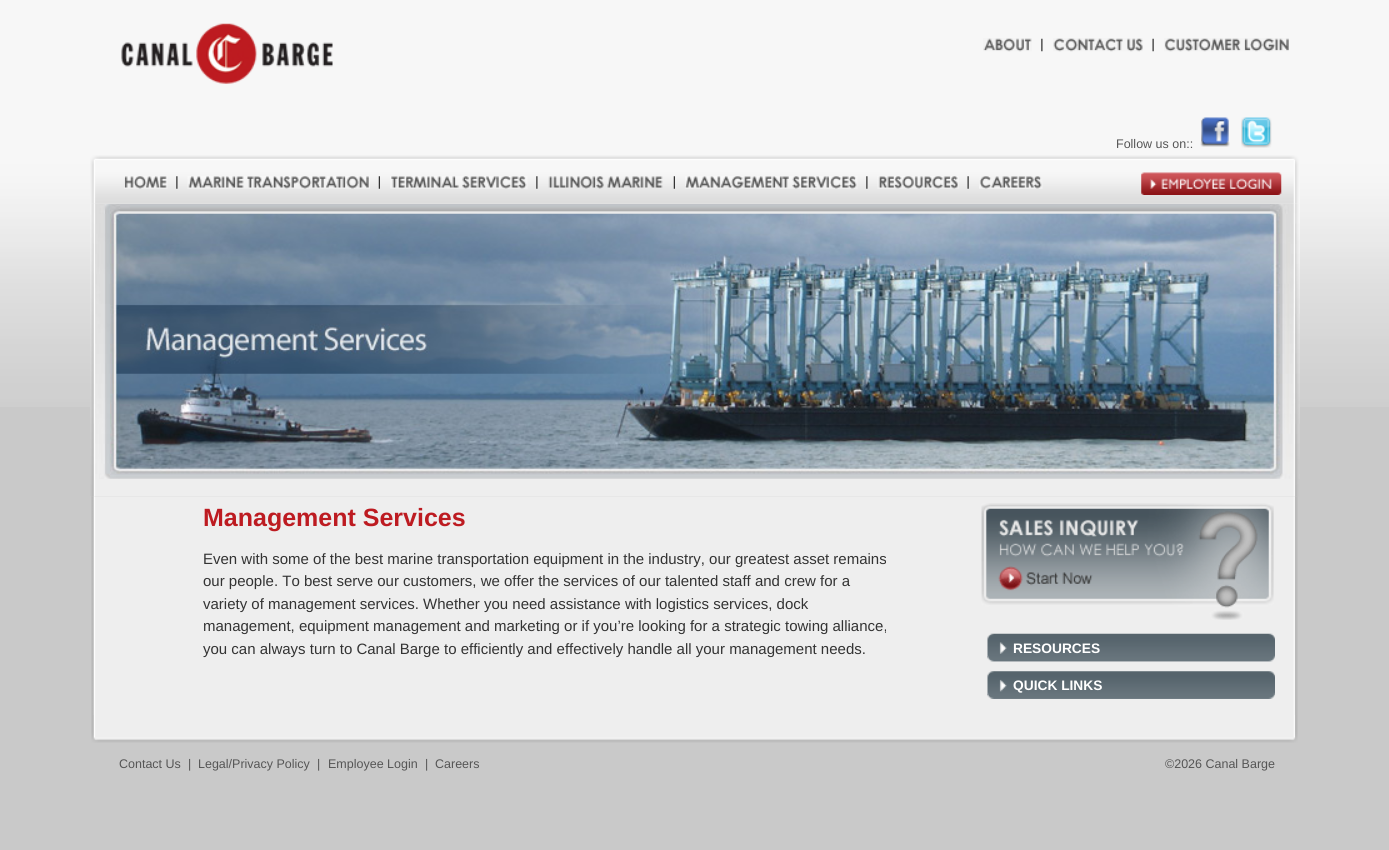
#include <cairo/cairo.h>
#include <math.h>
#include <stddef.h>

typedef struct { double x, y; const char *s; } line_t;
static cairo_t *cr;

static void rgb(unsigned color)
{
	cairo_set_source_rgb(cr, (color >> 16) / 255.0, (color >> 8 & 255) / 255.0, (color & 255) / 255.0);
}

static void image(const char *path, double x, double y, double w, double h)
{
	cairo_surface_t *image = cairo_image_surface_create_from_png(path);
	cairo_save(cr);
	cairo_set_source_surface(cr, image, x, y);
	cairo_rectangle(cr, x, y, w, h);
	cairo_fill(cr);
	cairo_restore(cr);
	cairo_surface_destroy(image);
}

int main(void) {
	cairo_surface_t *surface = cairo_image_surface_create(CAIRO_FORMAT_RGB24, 1389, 850);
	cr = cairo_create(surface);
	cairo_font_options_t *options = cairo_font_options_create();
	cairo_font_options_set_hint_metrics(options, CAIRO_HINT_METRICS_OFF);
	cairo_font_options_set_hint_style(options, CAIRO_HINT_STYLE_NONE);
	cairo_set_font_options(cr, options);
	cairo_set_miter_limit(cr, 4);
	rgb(0xc9c9c9);
	cairo_paint(cr);
	image("img/1.png", 0, 0, 1389, 407);
	image("img/2.png", 121, 23, 212, 61);
	image("img/3.png", 1041, 38, 2, 14);
	image("img/4.png", 983, 38, 49, 14);
	image("img/5.png", 1152, 38, 2, 14);
	image("img/6.png", 1053, 38, 90, 14);
	image("img/7.png", 1164, 38, 125, 14);
	image("img/8.png", 1200, 117, 30, 30);
	image("img/9.png", 1241, 117, 31, 31);
	image("img/22.png", 90, 203, 1209, 294);
	image("img/10.png", 90, 155, 1210, 49);
	image("img/11.png", 176, 176, 2, 13);
	image("img/12.png", 124, 176, 44, 13);
	image("img/13.png", 378, 176, 2, 13);
	image("img/14.png", 187, 176, 183, 13);
	image("img/11.png", 536, 176, 2, 13);
	image("img/15.png", 390, 176, 138, 13);
	image("img/13.png", 673, 176, 2, 13);
	image("img/16.png", 548, 176, 115, 13);
	image("img/11.png", 866, 176, 2, 13);
	image("img/17.png", 685, 176, 173, 13);
	image("img/18.png", 967, 176, 2, 13);
	image("img/19.png", 877, 176, 82, 13);
	image("img/20.png", 979, 176, 64, 13);
	image("img/21.png", 1141, 172, 141, 23);
	image("img/23.png", 93, 204, 1207, 275);
	image("img/24.png", 91, 496, 1207, 219);
	image("img/25.png", 981, 503, 293, 117);
	image("img/26.png", 987, 633, 288, 29);
	image("img/27.png", 987, 656, 288, 6);
	image("img/28.png", 987, 671, 288, 28);
	image("img/29.png", 987, 693, 288, 6);
	image("img/30.png", 91, 715, 1207, 28);
	cairo_select_font_face(cr, "Liberation Sans", CAIRO_FONT_SLANT_NORMAL, CAIRO_FONT_WEIGHT_NORMAL);
	cairo_set_font_size(cr, 12.5);
	rgb(0x555555);
	cairo_move_to(cr, 1116, 148);
	cairo_show_text(cr, "Follow us on::");
	cairo_select_font_face(cr, "Liberation Sans", CAIRO_FONT_SLANT_NORMAL, CAIRO_FONT_WEIGHT_BOLD);
	cairo_set_font_size(cr, 25);
	rgb(0xbd1b21);
	cairo_move_to(cr, 203, 526);
	cairo_show_text(cr, "Management Services");
	cairo_select_font_face(cr, "Liberation Sans", CAIRO_FONT_SLANT_NORMAL, CAIRO_FONT_WEIGHT_NORMAL);
	cairo_set_font_size(cr, 15);
	rgb(0x333333);
	{
		static const line_t items[] = {
			{203, 564, "Even with some of the best marine transportation equipment in the industry, our greatest asset remains"},
			{203, 586, "our people. To best serve our customers, we offer the services of our talented staff and crew for a"},
			{203, 609, "variety of management services. Whether you need assistance with logistics services, dock"},
			{203, 631, "management, equipment management and marketing or if you’re looking for a strategic towing alliance,"},
			{203, 654, "you can always turn to Canal Barge to efficiently and effectively handle all your management needs."},
		};
		for (size_t i = 0; i < sizeof items / sizeof *items; i++) {
			cairo_move_to(cr, items[i].x, items[i].y);
			cairo_show_text(cr, items[i].s);
		}
	}
	cairo_select_font_face(cr, "Liberation Sans", CAIRO_FONT_SLANT_NORMAL, CAIRO_FONT_WEIGHT_BOLD);
	cairo_set_font_size(cr, 13.75);
	rgb(0xffffff);
	cairo_move_to(cr, 1013, 653);
	cairo_show_text(cr, "RESOURCES");
	cairo_move_to(cr, 1013, 690);
	cairo_show_text(cr, "QUICK LINKS");
	cairo_select_font_face(cr, "Liberation Sans", CAIRO_FONT_SLANT_NORMAL, CAIRO_FONT_WEIGHT_NORMAL);
	cairo_set_font_size(cr, 12.5);
	rgb(0x555555);
	{
		static const line_t items[] = {
			{119, 768, "Contact Us"},
			{188, 768, "|"},
			{198, 768, "Legal/Privacy Policy"},
			{317, 768, "|"},
			{328, 768, "Employee Login"},
			{425, 768, "|"},
			{435, 768, "Careers"},
			{1165, 768, "©2026 Canal Barge"},
		};
		for (size_t i = 0; i < sizeof items / sizeof *items; i++) {
			cairo_move_to(cr, items[i].x, items[i].y);
			cairo_show_text(cr, items[i].s);
		}
	}
	cairo_surface_write_to_png(surface, "page.png");
	cairo_font_options_destroy(options);
	cairo_destroy(cr);
	cairo_surface_destroy(surface);
	return 0;
}
